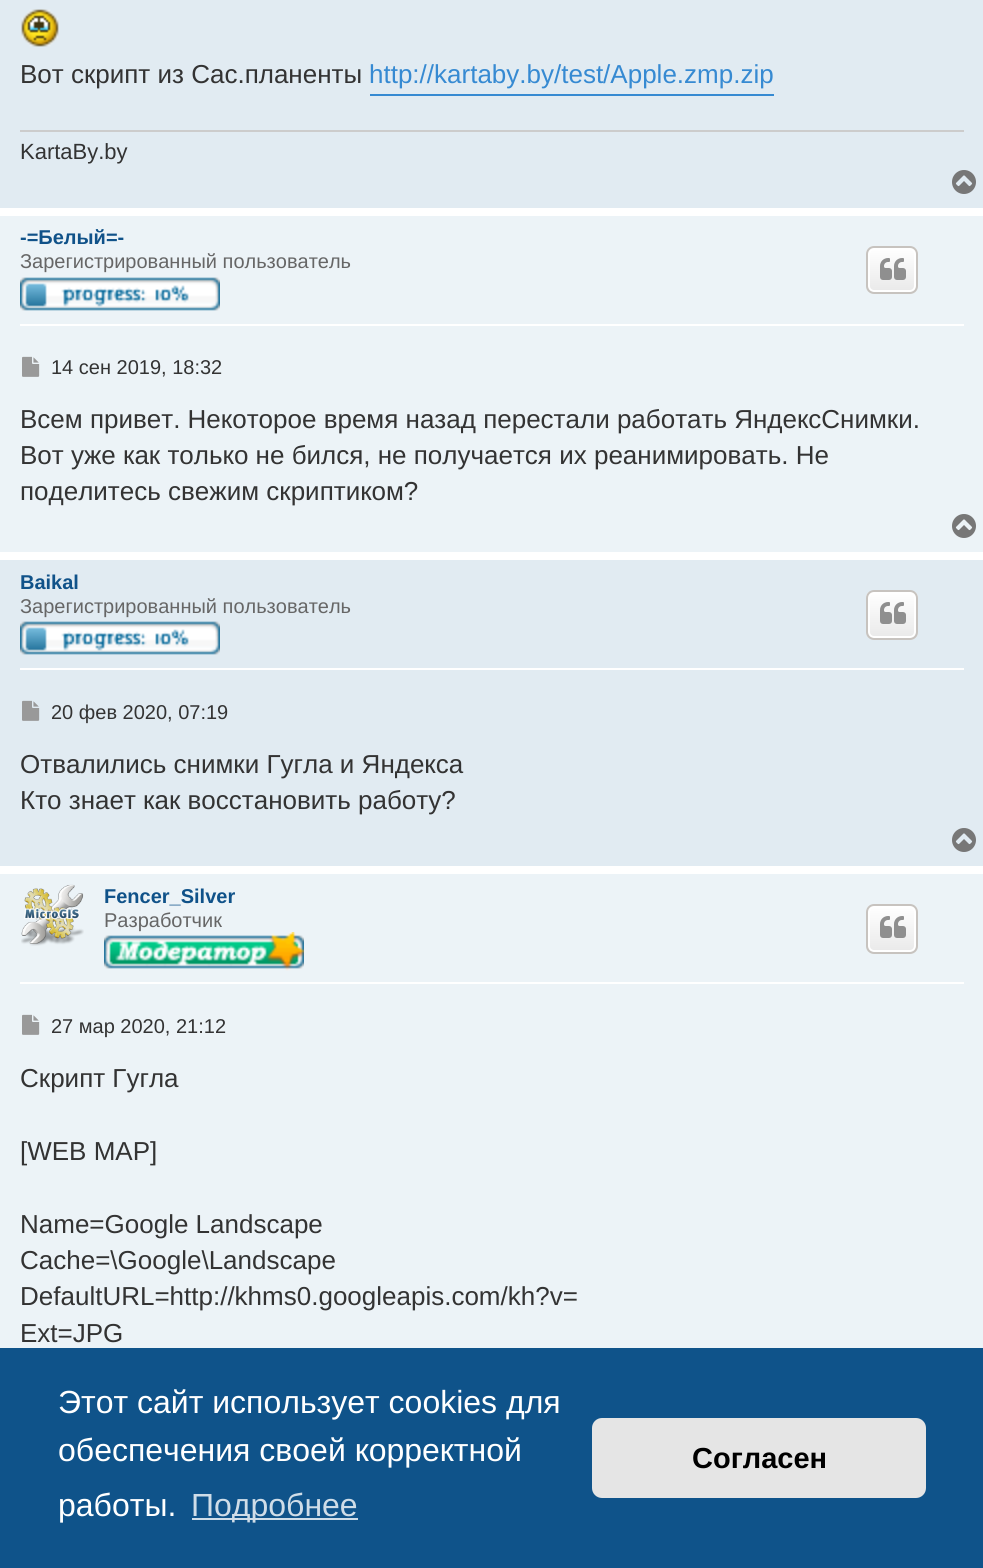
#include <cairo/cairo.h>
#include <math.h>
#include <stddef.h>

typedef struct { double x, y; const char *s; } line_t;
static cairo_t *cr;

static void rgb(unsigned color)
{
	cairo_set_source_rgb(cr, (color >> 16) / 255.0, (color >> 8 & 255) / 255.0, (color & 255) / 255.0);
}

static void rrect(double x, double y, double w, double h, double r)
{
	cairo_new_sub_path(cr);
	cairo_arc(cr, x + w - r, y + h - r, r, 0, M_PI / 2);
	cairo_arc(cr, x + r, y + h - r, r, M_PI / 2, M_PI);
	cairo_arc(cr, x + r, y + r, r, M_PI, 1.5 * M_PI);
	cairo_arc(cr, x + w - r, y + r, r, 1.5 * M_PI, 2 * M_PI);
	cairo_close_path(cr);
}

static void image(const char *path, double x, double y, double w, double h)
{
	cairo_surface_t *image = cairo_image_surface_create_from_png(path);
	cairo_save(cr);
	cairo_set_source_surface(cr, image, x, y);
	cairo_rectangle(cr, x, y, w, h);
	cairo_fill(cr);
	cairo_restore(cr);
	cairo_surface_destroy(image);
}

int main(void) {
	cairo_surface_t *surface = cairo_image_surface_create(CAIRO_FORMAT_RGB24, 983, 1568);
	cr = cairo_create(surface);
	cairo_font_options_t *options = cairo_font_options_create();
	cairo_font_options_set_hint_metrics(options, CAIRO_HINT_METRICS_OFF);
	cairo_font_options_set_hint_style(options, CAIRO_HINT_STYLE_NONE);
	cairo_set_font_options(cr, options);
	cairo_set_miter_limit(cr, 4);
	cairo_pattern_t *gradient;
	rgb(0xffffff);
	cairo_paint(cr);
	rgb(0xe1ebf2);
	cairo_rectangle(cr, 0, 0, 983, 208);
	cairo_fill(cr);
	image("img/1.png", 21, 9, 38, 38);
	rgb(0x368ad2);
	cairo_rectangle(cr, 370, 94, 404, 2);
	cairo_fill(cr);
	rgb(0xcccccc);
	cairo_rectangle(cr, 20, 130, 944, 2);
	cairo_fill(cr);
	image("img/2.png", 952, 170, 24, 24);
	rgb(0xecf3f7);
	cairo_rectangle(cr, 0, 216, 983, 336);
	cairo_fill(cr);
	rgb(0xffffff);
	cairo_rectangle(cr, 20, 324, 944, 2);
	cairo_fill(cr);
	image("img/3.png", 20, 277, 200, 34);
	cairo_save(cr);
	rrect(866, 246, 52, 48, 8);
	cairo_clip(cr);
	gradient = cairo_pattern_create_linear(892, 248, 892, 292);
	cairo_pattern_add_color_stop_rgba(gradient, 0, 1, 1, 1, 1);
	cairo_pattern_add_color_stop_rgba(gradient, 1, 0.914, 0.914, 0.914, 1);
	cairo_set_source(cr, gradient);
	cairo_pattern_destroy(gradient);
	cairo_rectangle(cr, 866, 248, 52, 44);
	cairo_fill(cr);
	cairo_restore(cr);
	rrect(869, 249, 46, 42, 5);
	cairo_stroke(cr);
	rrect(867, 247, 50, 46, 7);
	rgb(0xc7c3bf);
	cairo_stroke(cr);
	image("img/4.png", 880, 258, 26, 22);
	image("img/5.png", 22, 356, 18, 21);
	image("img/6.png", 952, 514, 24, 24);
	rgb(0xe1ebf2);
	cairo_rectangle(cr, 0, 560, 983, 306);
	cairo_fill(cr);
	rgb(0xffffff);
	cairo_rectangle(cr, 20, 668, 944, 2);
	cairo_fill(cr);
	image("img/7.png", 20, 621, 200, 34);
	cairo_save(cr);
	rrect(866, 590, 52, 50, 8);
	cairo_clip(cr);
	gradient = cairo_pattern_create_linear(892, 592, 892, 638);
	cairo_pattern_add_color_stop_rgba(gradient, 0, 1, 1, 1, 1);
	cairo_pattern_add_color_stop_rgba(gradient, 1, 0.914, 0.914, 0.914, 1);
	cairo_set_source(cr, gradient);
	cairo_pattern_destroy(gradient);
	cairo_rectangle(cr, 866, 592, 52, 46);
	cairo_fill(cr);
	cairo_restore(cr);
	rrect(869, 593, 46, 44, 5);
	cairo_stroke(cr);
	rrect(867, 591, 50, 48, 7);
	rgb(0xc7c3bf);
	cairo_stroke(cr);
	image("img/8.png", 880, 602, 26, 22);
	image("img/9.png", 22, 700, 18, 21);
	image("img/2.png", 952, 828, 24, 24);
	rgb(0xecf3f7);
	cairo_rectangle(cr, 0, 874, 983, 474);
	cairo_fill(cr);
	rgb(0xffffff);
	cairo_rectangle(cr, 20, 982, 944, 2);
	cairo_fill(cr);
	image("img/10.png", 21, 884, 63, 62);
	image("img/11.png", 104, 932, 200, 39);
	cairo_save(cr);
	rrect(866, 904, 52, 50, 8);
	cairo_clip(cr);
	gradient = cairo_pattern_create_linear(892, 906, 892, 952);
	cairo_pattern_add_color_stop_rgba(gradient, 0, 1, 1, 1, 1);
	cairo_pattern_add_color_stop_rgba(gradient, 1, 0.914, 0.914, 0.914, 1);
	cairo_set_source(cr, gradient);
	cairo_pattern_destroy(gradient);
	cairo_rectangle(cr, 866, 906, 52, 46);
	cairo_fill(cr);
	cairo_restore(cr);
	rrect(869, 907, 46, 44, 5);
	cairo_stroke(cr);
	rrect(867, 905, 50, 48, 7);
	rgb(0xc7c3bf);
	cairo_stroke(cr);
	image("img/8.png", 880, 916, 26, 22);
	image("img/5.png", 22, 1014, 18, 21);
	rgb(0x0f538a);
	cairo_rectangle(cr, 0, 1348, 983, 220);
	cairo_fill(cr);
	rgb(0xcfdde8);
	cairo_rectangle(cr, 192, 1518, 166, 2);
	cairo_fill(cr);
	rgb(0xe5e5e5);
	rrect(592, 1418, 334, 80, 10);
	cairo_fill(cr);
	cairo_select_font_face(cr, "Liberation Sans", CAIRO_FONT_SLANT_NORMAL, CAIRO_FONT_WEIGHT_NORMAL);
	cairo_set_font_size(cr, 26);
	rgb(0x333333);
	cairo_move_to(cr, 20, 83);
	cairo_show_text(cr, "Вот скрипт из Сас.планенты");
	rgb(0x368ad2);
	cairo_move_to(cr, 369, 83);
	cairo_show_text(cr, "http://kartaby.by/test/Apple.zmp.zip");
	cairo_set_font_size(cr, 22);
	rgb(0x333333);
	cairo_move_to(cr, 20, 159);
	cairo_show_text(cr, "KartaBy.by");
	cairo_select_font_face(cr, "Liberation Sans", CAIRO_FONT_SLANT_NORMAL, CAIRO_FONT_WEIGHT_BOLD);
	cairo_set_font_size(cr, 20);
	rgb(0x105289);
	cairo_move_to(cr, 20, 244);
	cairo_show_text(cr, "-=Белый=-");
	cairo_select_font_face(cr, "Liberation Sans", CAIRO_FONT_SLANT_NORMAL, CAIRO_FONT_WEIGHT_NORMAL);
	rgb(0x666666);
	cairo_move_to(cr, 20, 268);
	cairo_show_text(cr, "Зарегистрированный пользователь");
	rgb(0x333333);
	cairo_move_to(cr, 51, 374);
	cairo_show_text(cr, "14 сен 2019, 18:32");
	cairo_set_font_size(cr, 26);
	{
		static const line_t items[] = {
			{20, 428, "Всем привет. Некоторое время назад перестали работать ЯндексСнимки."},
			{20, 464, "Вот уже как только не бился, не получается их реанимировать. Не"},
			{20, 500, "поделитесь свежим скриптиком?"},
		};
		for (size_t i = 0; i < sizeof items / sizeof *items; i++) {
			cairo_move_to(cr, items[i].x, items[i].y);
			cairo_show_text(cr, items[i].s);
		}
	}
	cairo_select_font_face(cr, "Liberation Sans", CAIRO_FONT_SLANT_NORMAL, CAIRO_FONT_WEIGHT_BOLD);
	cairo_set_font_size(cr, 20);
	rgb(0x105289);
	cairo_move_to(cr, 20, 589);
	cairo_show_text(cr, "Baikal");
	cairo_select_font_face(cr, "Liberation Sans", CAIRO_FONT_SLANT_NORMAL, CAIRO_FONT_WEIGHT_NORMAL);
	rgb(0x666666);
	cairo_move_to(cr, 20, 613);
	cairo_show_text(cr, "Зарегистрированный пользователь");
	rgb(0x333333);
	cairo_move_to(cr, 51, 719);
	cairo_show_text(cr, "20 фев 2020, 07:19");
	cairo_set_font_size(cr, 26);
	cairo_move_to(cr, 20, 773);
	cairo_show_text(cr, "Отвалились снимки Гугла и Яндекса");
	cairo_move_to(cr, 20, 809);
	cairo_show_text(cr, "Кто знает как восстановить работу?");
	cairo_select_font_face(cr, "Liberation Sans", CAIRO_FONT_SLANT_NORMAL, CAIRO_FONT_WEIGHT_BOLD);
	cairo_set_font_size(cr, 20);
	rgb(0x105289);
	cairo_move_to(cr, 104, 903);
	cairo_show_text(cr, "Fencer_Silver");
	cairo_select_font_face(cr, "Liberation Sans", CAIRO_FONT_SLANT_NORMAL, CAIRO_FONT_WEIGHT_NORMAL);
	rgb(0x666666);
	cairo_move_to(cr, 104, 927);
	cairo_show_text(cr, "Разработчик");
	rgb(0x333333);
	cairo_move_to(cr, 51, 1033);
	cairo_show_text(cr, "27 мар 2020, 21:12");
	cairo_set_font_size(cr, 26);
	{
		static const line_t items[] = {
			{20, 1087, "Скрипт Гугла"},
			{20, 1160, "[WEB MAP]"},
			{20, 1233, "Name=Google Landscape"},
			{20, 1269, "Cache=\\Google\\Landscape"},
			{20, 1305, "DefaultURL=http://khms0.googleapis.com/kh?v="},
			{20, 1342, "Ext=JPG"},
		};
		for (size_t i = 0; i < sizeof items / sizeof *items; i++) {
			cairo_move_to(cr, items[i].x, items[i].y);
			cairo_show_text(cr, items[i].s);
		}
	}
	cairo_set_font_size(cr, 32);
	rgb(0xffffff);
	{
		static const line_t items[] = {
			{58, 1413, "Этот сайт использует cookies для"},
			{58, 1461, "обеспечения своей корректной"},
			{58, 1516, "работы."},
		};
		for (size_t i = 0; i < sizeof items / sizeof *items; i++) {
			cairo_move_to(cr, items[i].x, items[i].y);
			cairo_show_text(cr, items[i].s);
		}
	}
	rgb(0xcfdde8);
	cairo_move_to(cr, 191, 1516);
	cairo_show_text(cr, "Подробнее");
	cairo_select_font_face(cr, "Liberation Sans", CAIRO_FONT_SLANT_NORMAL, CAIRO_FONT_WEIGHT_BOLD);
	cairo_set_font_size(cr, 29);
	rgb(0x000000);
	cairo_move_to(cr, 692, 1468);
	cairo_show_text(cr, "Согласен");
	cairo_surface_write_to_png(surface, "page.png");
	cairo_font_options_destroy(options);
	cairo_destroy(cr);
	cairo_surface_destroy(surface);
	return 0;
}
